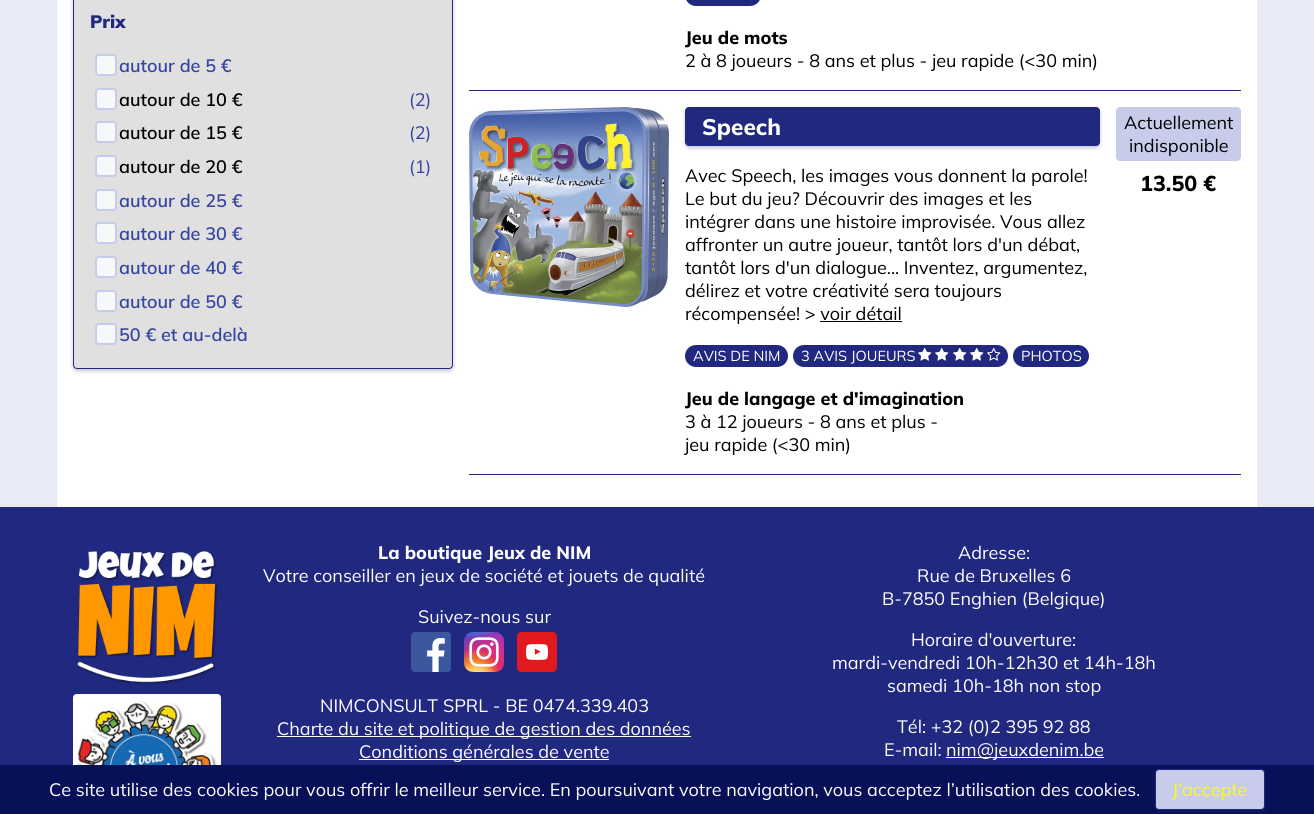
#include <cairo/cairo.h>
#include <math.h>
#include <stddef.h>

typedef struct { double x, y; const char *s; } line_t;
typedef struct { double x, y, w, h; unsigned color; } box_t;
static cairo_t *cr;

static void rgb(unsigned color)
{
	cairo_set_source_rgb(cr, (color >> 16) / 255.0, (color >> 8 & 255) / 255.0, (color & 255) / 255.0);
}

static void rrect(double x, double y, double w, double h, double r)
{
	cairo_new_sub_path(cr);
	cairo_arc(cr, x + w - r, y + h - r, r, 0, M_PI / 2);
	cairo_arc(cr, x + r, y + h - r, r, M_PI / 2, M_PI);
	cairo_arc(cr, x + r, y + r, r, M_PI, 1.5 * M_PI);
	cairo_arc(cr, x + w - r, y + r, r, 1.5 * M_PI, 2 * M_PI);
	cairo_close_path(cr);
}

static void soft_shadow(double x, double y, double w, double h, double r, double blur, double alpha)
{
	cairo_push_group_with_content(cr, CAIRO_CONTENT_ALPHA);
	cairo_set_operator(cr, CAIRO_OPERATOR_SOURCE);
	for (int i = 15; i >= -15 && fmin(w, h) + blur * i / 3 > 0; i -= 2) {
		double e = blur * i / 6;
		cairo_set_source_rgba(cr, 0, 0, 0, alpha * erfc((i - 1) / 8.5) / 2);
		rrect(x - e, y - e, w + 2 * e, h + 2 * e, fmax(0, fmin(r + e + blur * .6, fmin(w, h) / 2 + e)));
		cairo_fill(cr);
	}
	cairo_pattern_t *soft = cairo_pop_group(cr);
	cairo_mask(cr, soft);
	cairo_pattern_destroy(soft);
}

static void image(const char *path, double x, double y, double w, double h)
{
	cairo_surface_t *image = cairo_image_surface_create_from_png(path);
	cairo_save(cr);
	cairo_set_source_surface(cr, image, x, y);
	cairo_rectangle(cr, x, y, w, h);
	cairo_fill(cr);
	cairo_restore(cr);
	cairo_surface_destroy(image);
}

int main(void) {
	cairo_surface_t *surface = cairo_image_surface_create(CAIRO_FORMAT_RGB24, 1314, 814);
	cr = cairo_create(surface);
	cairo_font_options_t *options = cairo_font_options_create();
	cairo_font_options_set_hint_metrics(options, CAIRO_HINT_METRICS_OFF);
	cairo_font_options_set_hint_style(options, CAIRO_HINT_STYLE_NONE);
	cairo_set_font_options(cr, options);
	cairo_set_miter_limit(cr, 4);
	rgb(0xe8ebf6);
	cairo_paint(cr);
	rgb(0xffffff);
	cairo_rectangle(cr, 57, 0, 1200, 507);
	cairo_fill(cr);
	rgb(0x203080);
	soft_shadow(73, -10, 380, 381, 4, 2, 0.28);
	rgb(0xe0e0e0);
	rrect(73.5, -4.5, 379, 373, 3.5);
	cairo_fill_preserve(cr);
	rgb(0x202880);
	cairo_set_line_width(cr, 1);
	cairo_stroke(cr);
	rgb(0xf6f8fb);
	rrect(96, 55, 20, 20, 3);
	cairo_fill_preserve(cr);
	rgb(0xc6ccea);
	cairo_set_line_width(cr, 2);
	cairo_stroke(cr);
	rgb(0xf6f8fb);
	rrect(96, 89, 20, 20, 3);
	cairo_fill_preserve(cr);
	rgb(0xc6ccea);
	cairo_stroke(cr);
	rgb(0xf6f8fb);
	rrect(96, 122, 20, 20, 3);
	cairo_fill_preserve(cr);
	rgb(0xc6ccea);
	cairo_stroke(cr);
	rgb(0xf6f8fb);
	rrect(96, 156, 20, 20, 3);
	cairo_fill_preserve(cr);
	rgb(0xc6ccea);
	cairo_stroke(cr);
	rgb(0xf6f8fb);
	rrect(96, 190, 20, 20, 3);
	cairo_fill_preserve(cr);
	rgb(0xc6ccea);
	cairo_stroke(cr);
	rgb(0xf6f8fb);
	rrect(96, 223, 20, 20, 3);
	cairo_fill_preserve(cr);
	rgb(0xc6ccea);
	cairo_stroke(cr);
	rgb(0xf6f8fb);
	rrect(96, 257, 20, 20, 3);
	cairo_fill_preserve(cr);
	rgb(0xc6ccea);
	cairo_stroke(cr);
	rgb(0xf6f8fb);
	rrect(96, 291, 20, 20, 3);
	cairo_fill_preserve(cr);
	rgb(0xc6ccea);
	cairo_stroke(cr);
	rgb(0xf6f8fb);
	rrect(96, 324, 20, 20, 3);
	cairo_fill_preserve(cr);
	rgb(0xc6ccea);
	cairo_stroke(cr);
	rgb(0x202880);
	cairo_rectangle(cr, 469, 90, 772, 1);
	cairo_fill(cr);
	rrect(685, -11, 76, 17, 11);
	cairo_fill(cr);
	cairo_rectangle(cr, 469, 474, 772, 1);
	cairo_fill(cr);
	image("img/1.png", 469, 107, 200, 200);
	rgb(0x203080);
	soft_shadow(685, 109, 415, 39, 4, 2, 0.28);
	rgb(0x202880);
	rrect(685.5, 107.5, 414, 38, 3.5);
	cairo_fill_preserve(cr);
	cairo_set_line_width(cr, 1);
	cairo_stroke(cr);
	rgb(0x000000);
	cairo_rectangle(cr, 820, 321, 82, 1);
	cairo_fill(cr);
	rgb(0x202880);
	rrect(685, 345, 103, 22, 11);
	cairo_fill(cr);
	rrect(793, 345, 215, 22, 11);
	cairo_fill(cr);
	image("img/2.png", 918, 347, 14, 14);
	image("img/2.png", 935, 347, 14, 14);
	image("img/2.png", 953, 347, 14, 14);
	image("img/2.png", 970, 347, 14, 14);
	image("img/3.png", 987, 347, 14, 14);
	rrect(1013, 345, 76, 22, 11);
	cairo_fill(cr);
	rgb(0xc6ccea);
	rrect(1116, 107, 125, 54, 4);
	cairo_fill(cr);
	rgb(0x202880);
	cairo_rectangle(cr, 0, 507, 1314, 258);
	cairo_fill(cr);
	image("img/4.png", 77, 551, 141, 134);
	image("img/5.png", 73, 694, 148, 71);
	image("img/6.png", 411, 632, 40, 40);
	image("img/7.png", 464, 632, 40, 40);
	image("img/8.png", 517, 632, 40, 40);
	{
		static const box_t items[] = {
			{277, 736, 414, 1, 0xffffff},
			{359, 759, 250, 1, 0xffffff},
			{946, 757, 158, 1, 0xffffff},
			{0, 765, 1314, 49, 0x081058},
		};
		for (size_t i = 0; i < sizeof items / sizeof *items; i++) {
			rgb(items[i].color);
			cairo_rectangle(cr, items[i].x, items[i].y, items[i].w, items[i].h);
			cairo_fill(cr);
		}
	}
	rgb(0x203080);
	soft_shadow(1155, 771, 110, 41, 4, 2, 0.28);
	rgb(0xc6ccea);
	rrect(1155.5, 769.5, 109, 40, 3.5);
	cairo_fill_preserve(cr);
	rgb(0x202880);
	cairo_stroke(cr);
	cairo_select_font_face(cr, "Mulish Black", CAIRO_FONT_SLANT_NORMAL, CAIRO_FONT_WEIGHT_NORMAL);
	cairo_set_font_size(cr, 18);
	cairo_move_to(cr, 90, 28);
	cairo_show_text(cr, "Prix");
	cairo_select_font_face(cr, "Mulish SemiBold", CAIRO_FONT_SLANT_NORMAL, CAIRO_FONT_WEIGHT_NORMAL);
	rgb(0x3544a1);
	cairo_move_to(cr, 119, 72);
	cairo_show_text(cr, "autour de 5 €");
	rgb(0x000000);
	cairo_move_to(cr, 119, 106);
	cairo_show_text(cr, "autour de 10 €");
	cairo_select_font_face(cr, "Mulish", CAIRO_FONT_SLANT_NORMAL, CAIRO_FONT_WEIGHT_NORMAL);
	rgb(0x3544a1);
	cairo_move_to(cr, 409, 106);
	cairo_show_text(cr, "(2)");
	cairo_select_font_face(cr, "Mulish SemiBold", CAIRO_FONT_SLANT_NORMAL, CAIRO_FONT_WEIGHT_NORMAL);
	rgb(0x000000);
	cairo_move_to(cr, 119, 139);
	cairo_show_text(cr, "autour de 15 €");
	cairo_select_font_face(cr, "Mulish", CAIRO_FONT_SLANT_NORMAL, CAIRO_FONT_WEIGHT_NORMAL);
	rgb(0x3544a1);
	cairo_move_to(cr, 409, 139);
	cairo_show_text(cr, "(2)");
	cairo_select_font_face(cr, "Mulish SemiBold", CAIRO_FONT_SLANT_NORMAL, CAIRO_FONT_WEIGHT_NORMAL);
	rgb(0x000000);
	cairo_move_to(cr, 119, 173);
	cairo_show_text(cr, "autour de 20 €");
	cairo_select_font_face(cr, "Mulish", CAIRO_FONT_SLANT_NORMAL, CAIRO_FONT_WEIGHT_NORMAL);
	rgb(0x3544a1);
	cairo_move_to(cr, 409, 173);
	cairo_show_text(cr, "(1)");
	cairo_select_font_face(cr, "Mulish SemiBold", CAIRO_FONT_SLANT_NORMAL, CAIRO_FONT_WEIGHT_NORMAL);
	{
		static const line_t items[] = {
			{119, 207, "autour de 25 €"},
			{119, 240, "autour de 30 €"},
			{119, 274, "autour de 40 €"},
			{119, 308, "autour de 50 €"},
			{119, 341, "50 € et au-delà"},
		};
		for (size_t i = 0; i < sizeof items / sizeof *items; i++) {
			cairo_move_to(cr, items[i].x, items[i].y);
			cairo_show_text(cr, items[i].s);
		}
	}
	cairo_select_font_face(cr, "Mulish ExtraBold", CAIRO_FONT_SLANT_NORMAL, CAIRO_FONT_WEIGHT_NORMAL);
	rgb(0x000000);
	cairo_move_to(cr, 685, 44);
	cairo_show_text(cr, "Jeu de mots");
	cairo_select_font_face(cr, "Mulish", CAIRO_FONT_SLANT_NORMAL, CAIRO_FONT_WEIGHT_NORMAL);
	cairo_move_to(cr, 685, 67);
	cairo_show_text(cr, "2 à 8 joueurs - 8 ans et plus - jeu rapide (<30 min)");
	cairo_select_font_face(cr, "Mulish ExtraBold", CAIRO_FONT_SLANT_NORMAL, CAIRO_FONT_WEIGHT_NORMAL);
	cairo_set_font_size(cr, 22.5);
	rgb(0xffffff);
	cairo_move_to(cr, 702, 135);
	cairo_show_text(cr, "Speech");
	cairo_select_font_face(cr, "Mulish", CAIRO_FONT_SLANT_NORMAL, CAIRO_FONT_WEIGHT_NORMAL);
	cairo_set_font_size(cr, 18);
	rgb(0x000000);
	{
		static const line_t items[] = {
			{685, 182, "Avec Speech, les images vous donnent la parole!"},
			{685, 205, "Le but du jeu? Découvrir des images et les"},
			{685, 228, "intégrer dans une histoire improvisée. Vous allez"},
			{685, 251, "affronter un autre joueur, tantôt lors d'un débat,"},
			{685, 274, "tantôt lors d'un dialogue... Inventez, argumentez,"},
			{685, 297, "délirez et votre créativité sera toujours"},
			{685, 320, "récompensée! > voir détail"},
		};
		for (size_t i = 0; i < sizeof items / sizeof *items; i++) {
			cairo_move_to(cr, items[i].x, items[i].y);
			cairo_show_text(cr, items[i].s);
		}
	}
	cairo_set_font_size(cr, 14.5);
	rgb(0xffffff);
	{
		static const line_t items[] = {
			{693, 361, "AVIS DE NIM"},
			{801, 361, "3 AVIS JOUEURS"},
			{1021, 361, "PHOTOS"},
		};
		for (size_t i = 0; i < sizeof items / sizeof *items; i++) {
			cairo_move_to(cr, items[i].x, items[i].y);
			cairo_show_text(cr, items[i].s);
		}
	}
	cairo_select_font_face(cr, "Mulish ExtraBold", CAIRO_FONT_SLANT_NORMAL, CAIRO_FONT_WEIGHT_NORMAL);
	cairo_set_font_size(cr, 18);
	rgb(0x000000);
	cairo_move_to(cr, 685, 405);
	cairo_show_text(cr, "Jeu de langage et d'imagination");
	cairo_select_font_face(cr, "Mulish", CAIRO_FONT_SLANT_NORMAL, CAIRO_FONT_WEIGHT_NORMAL);
	{
		static const line_t items[] = {
			{685, 428, "3 à 12 joueurs - 8 ans et plus -"},
			{685, 451, "jeu rapide (<30 min)"},
			{1124, 129, "Actuellement"},
			{1129, 152, "indisponible"},
		};
		for (size_t i = 0; i < sizeof items / sizeof *items; i++) {
			cairo_move_to(cr, items[i].x, items[i].y);
			cairo_show_text(cr, items[i].s);
		}
	}
	cairo_select_font_face(cr, "Mulish ExtraBold", CAIRO_FONT_SLANT_NORMAL, CAIRO_FONT_WEIGHT_NORMAL);
	cairo_set_font_size(cr, 21.5);
	cairo_move_to(cr, 1140, 191);
	cairo_show_text(cr, "13.50 €");
	cairo_set_font_size(cr, 18);
	rgb(0xffffff);
	cairo_move_to(cr, 378, 559);
	cairo_show_text(cr, "La boutique Jeux de NIM");
	cairo_select_font_face(cr, "Mulish", CAIRO_FONT_SLANT_NORMAL, CAIRO_FONT_WEIGHT_NORMAL);
	{
		static const line_t items[] = {
			{263, 582, "Votre conseiller en jeux de société et jouets de qualité"},
			{418, 623, "Suivez-nous sur"},
			{320, 712, "NIMCONSULT SPRL - BE 0474.339.403"},
			{277, 735, "Charte du site et politique de gestion des données"},
			{359, 758, "Conditions générales de vente"},
			{958, 559, "Adresse:"},
			{917, 582, "Rue de Bruxelles 6"},
			{882, 605, "B-7850 Enghien (Belgique)"},
			{911, 646, "Horaire d'ouverture:"},
			{832, 669, "mardi-vendredi 10h-12h30 et 14h-18h"},
			{887, 692, "samedi 10h-18h non stop"},
			{897, 733, "Tél: +32 (0)2 395 92 88"},
			{884, 756, "E-mail:"},
			{946, 756, "nim@jeuxdenim.be"},
			{49, 796, "Ce site utilise des cookies pour vous offrir le meilleur service. En poursuivant votre navigation, vous acceptez l’utilisation des cookies."},
		};
		for (size_t i = 0; i < sizeof items / sizeof *items; i++) {
			cairo_move_to(cr, items[i].x, items[i].y);
			cairo_show_text(cr, items[i].s);
		}
	}
	rgb(0xffff00);
	cairo_move_to(cr, 1172, 796);
	cairo_show_text(cr, "J’accepte");
	cairo_surface_write_to_png(surface, "page.png");
	cairo_font_options_destroy(options);
	cairo_destroy(cr);
	cairo_surface_destroy(surface);
	return 0;
}
